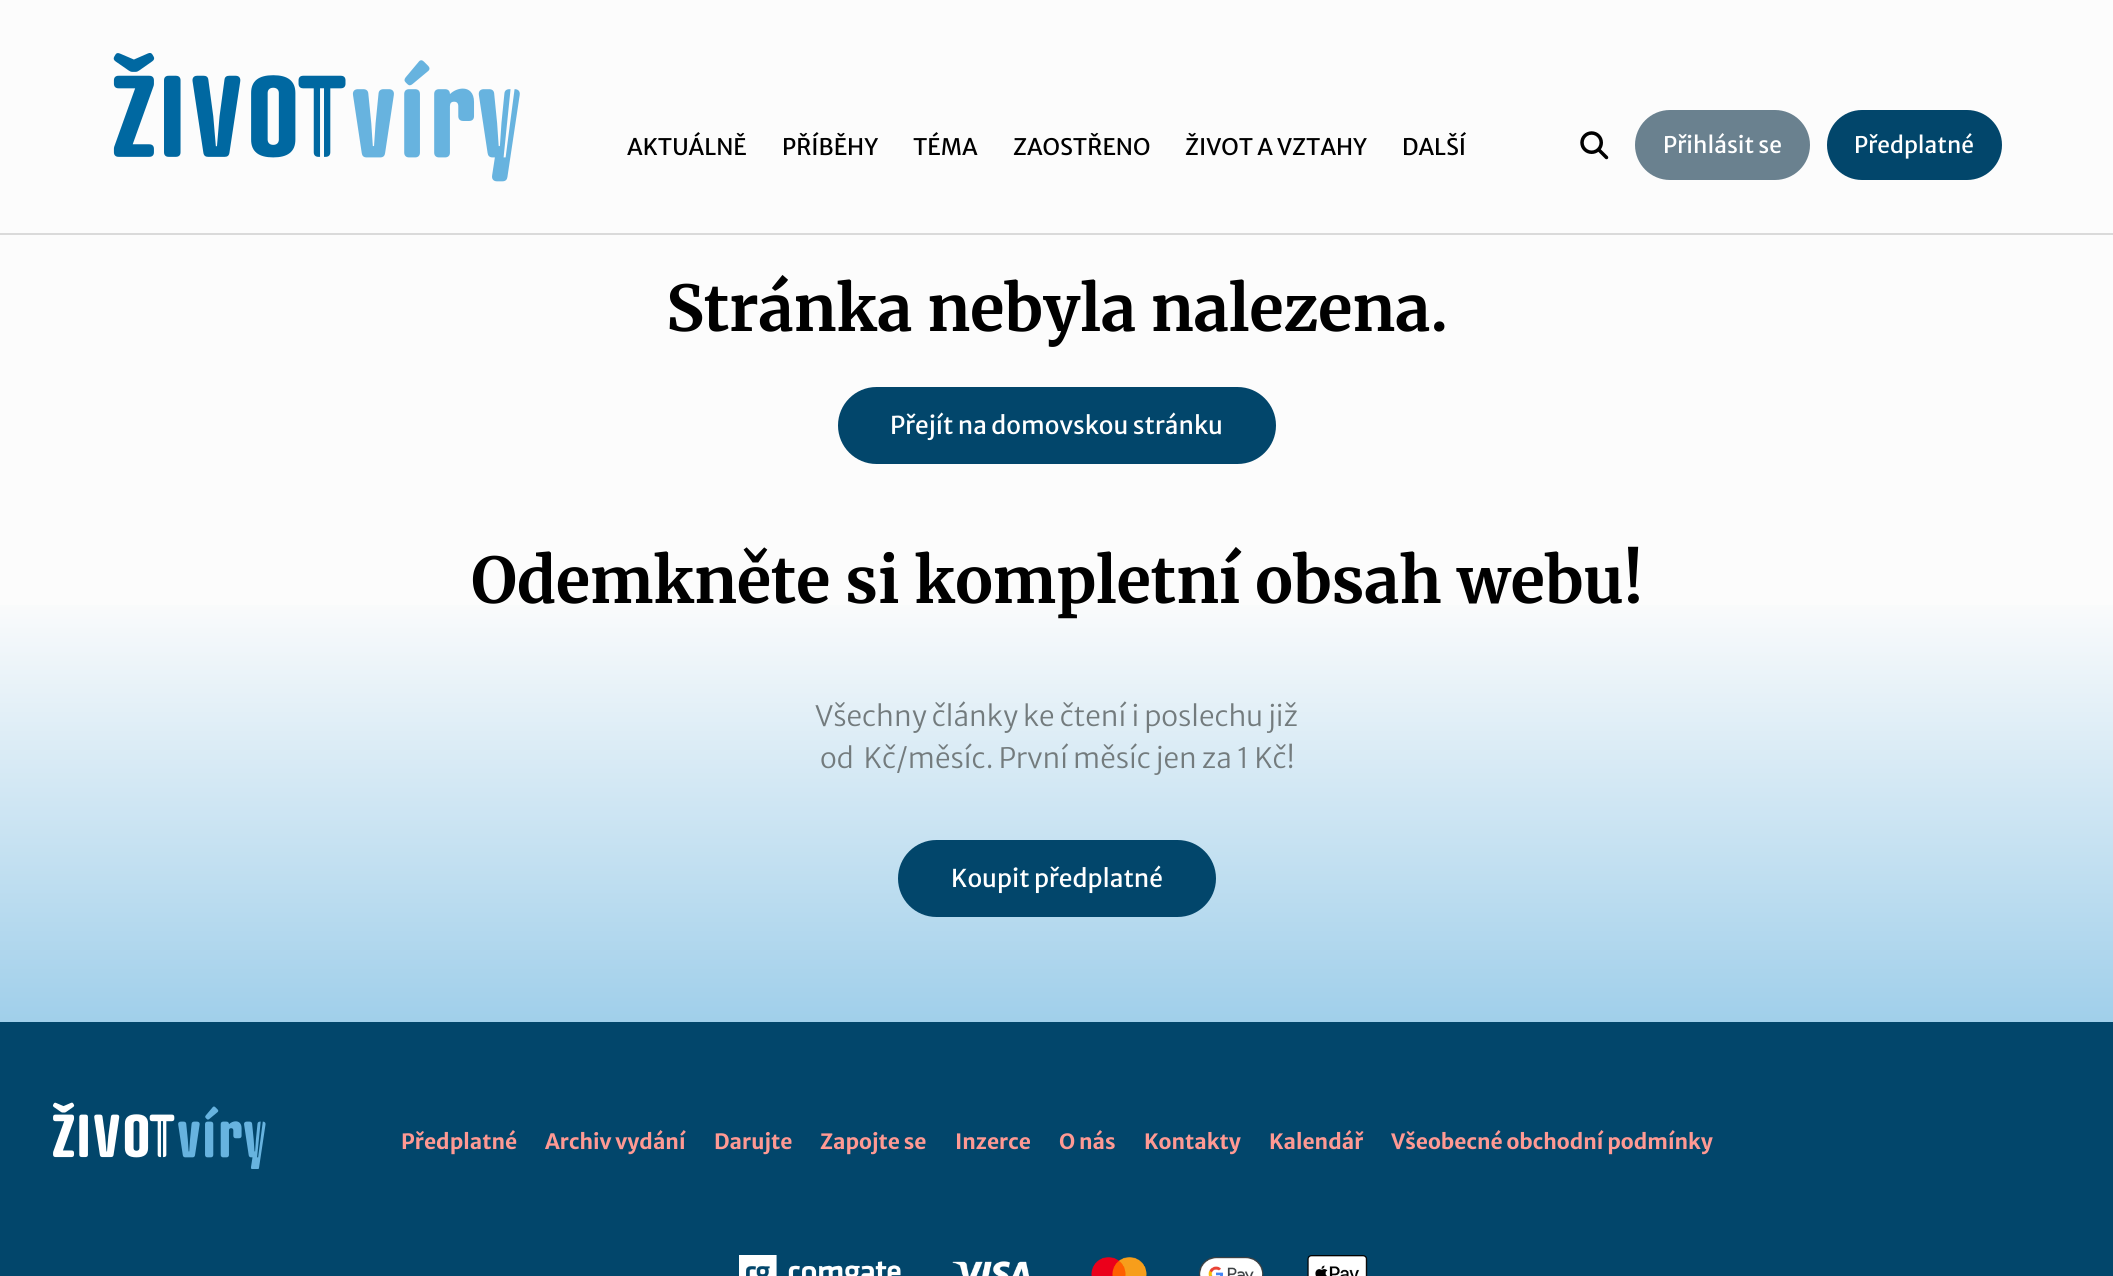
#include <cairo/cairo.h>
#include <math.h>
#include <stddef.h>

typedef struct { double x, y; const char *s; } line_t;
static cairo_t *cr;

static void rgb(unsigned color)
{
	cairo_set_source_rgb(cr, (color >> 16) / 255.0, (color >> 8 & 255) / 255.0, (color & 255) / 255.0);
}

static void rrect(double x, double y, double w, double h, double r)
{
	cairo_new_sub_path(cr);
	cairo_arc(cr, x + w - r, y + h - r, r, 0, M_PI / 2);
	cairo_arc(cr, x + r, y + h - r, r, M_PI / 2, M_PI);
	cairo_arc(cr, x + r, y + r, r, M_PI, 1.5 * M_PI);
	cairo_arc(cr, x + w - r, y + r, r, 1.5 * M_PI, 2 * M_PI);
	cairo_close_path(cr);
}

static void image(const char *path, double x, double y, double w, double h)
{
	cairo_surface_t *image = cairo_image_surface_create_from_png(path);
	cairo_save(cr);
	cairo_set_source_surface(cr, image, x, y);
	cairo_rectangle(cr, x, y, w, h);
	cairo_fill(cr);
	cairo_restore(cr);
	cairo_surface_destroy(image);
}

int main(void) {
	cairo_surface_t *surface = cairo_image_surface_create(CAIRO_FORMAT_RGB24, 2113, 1276);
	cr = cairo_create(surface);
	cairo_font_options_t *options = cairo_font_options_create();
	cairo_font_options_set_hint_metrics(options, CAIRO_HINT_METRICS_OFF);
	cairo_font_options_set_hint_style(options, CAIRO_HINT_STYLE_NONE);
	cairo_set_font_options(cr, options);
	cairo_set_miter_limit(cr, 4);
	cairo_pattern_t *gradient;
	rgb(0xfcfcfc);
	cairo_paint(cr);
	rgb(0xdadada);
	cairo_rectangle(cr, 0, 233, 2113, 2);
	cairo_fill(cr);
	image("img/1.png", 113, 53, 407, 129);
	image("img/2.png", 1580, 131, 29, 29);
	rgb(0x6a818f);
	rrect(1635, 110, 175, 70, 35);
	cairo_fill(cr);
	rgb(0x02466b);
	rrect(1827, 110, 175, 70, 35);
	cairo_fill(cr);
	rrect(838, 387, 438, 77, 38.5);
	cairo_fill(cr);
	gradient = cairo_pattern_create_linear(1057, 490, 1057, 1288);
	cairo_pattern_add_color_stop_rgba(gradient, 0, 0.988, 0.988, 0.988, 1);
	cairo_pattern_add_color_stop_rgba(gradient, 0.13, 0.988, 0.988, 0.988, 1);
	cairo_pattern_add_color_stop_rgba(gradient, 1, 0.404, 0.702, 0.875, 1);
	cairo_set_source(cr, gradient);
	cairo_pattern_destroy(gradient);
	cairo_rectangle(cr, 0, 605, 2113, 417);
	cairo_fill(cr);
	rgb(0x02466b);
	rrect(898, 840, 318, 77, 38.5);
	cairo_fill(cr);
	cairo_rectangle(cr, 0, 1022, 2113, 254);
	cairo_fill(cr);
	image("img/3.png", 53, 1102, 213, 67);
	image("img/4.png", 739, 1255, 629, 21);
	cairo_select_font_face(cr, "Merriweather Sans", CAIRO_FONT_SLANT_NORMAL, CAIRO_FONT_WEIGHT_NORMAL);
	cairo_set_font_size(cr, 22.75);
	rgb(0x000000);
	{
		static const line_t items[] = {
			{627, 155, "AKTUÁLNĚ"},
			{782, 155, "PŘÍBĚHY"},
			{913, 155, "TÉMA"},
			{1013, 155, "ZAOSTŘENO"},
			{1185, 155, "ŽIVOT A VZTAHY"},
			{1402, 155, "DALŠÍ"},
		};
		for (size_t i = 0; i < sizeof items / sizeof *items; i++) {
			cairo_move_to(cr, items[i].x, items[i].y);
			cairo_show_text(cr, items[i].s);
		}
	}
	rgb(0xffffff);
	cairo_move_to(cr, 1663, 153);
	cairo_show_text(cr, "Přihlásit se");
	cairo_move_to(cr, 1854, 153);
	cairo_show_text(cr, "Předplatné");
	cairo_select_font_face(cr, "Merriweather", CAIRO_FONT_SLANT_NORMAL, CAIRO_FONT_WEIGHT_BOLD);
	cairo_set_font_size(cr, 63);
	rgb(0x000000);
	cairo_move_to(cr, 666, 331);
	cairo_show_text(cr, "Stránka nebyla nalezena.");
	cairo_select_font_face(cr, "Merriweather Sans", CAIRO_FONT_SLANT_NORMAL, CAIRO_FONT_WEIGHT_NORMAL);
	cairo_set_font_size(cr, 24.5);
	rgb(0xffffff);
	cairo_move_to(cr, 890, 434);
	cairo_show_text(cr, "Přejít na domovskou stránku");
	cairo_select_font_face(cr, "Merriweather", CAIRO_FONT_SLANT_NORMAL, CAIRO_FONT_WEIGHT_BOLD);
	cairo_set_font_size(cr, 63);
	rgb(0x000000);
	cairo_move_to(cr, 471, 603);
	cairo_show_text(cr, "Odemkněte si kompletní obsah webu!");
	cairo_select_font_face(cr, "Merriweather Sans Light", CAIRO_FONT_SLANT_NORMAL, CAIRO_FONT_WEIGHT_NORMAL);
	cairo_set_font_size(cr, 28);
	rgb(0x737b7d);
	cairo_move_to(cr, 815, 726);
	cairo_show_text(cr, "Všechny články ke čtení i poslechu již");
	cairo_move_to(cr, 820, 768);
	cairo_show_text(cr, "od  Kč/měsíc. První měsíc jen za 1 Kč!");
	cairo_select_font_face(cr, "Merriweather Sans", CAIRO_FONT_SLANT_NORMAL, CAIRO_FONT_WEIGHT_NORMAL);
	cairo_set_font_size(cr, 24.5);
	rgb(0xffffff);
	cairo_move_to(cr, 951, 887);
	cairo_show_text(cr, "Koupit předplatné");
	cairo_select_font_face(cr, "Merriweather Sans", CAIRO_FONT_SLANT_NORMAL, CAIRO_FONT_WEIGHT_BOLD);
	cairo_set_font_size(cr, 21);
	rgb(0xff9993);
	{
		static const line_t items[] = {
			{401, 1149, "Předplatné"},
			{545, 1149, "Archiv vydání"},
			{714, 1149, "Darujte"},
			{820, 1149, "Zapojte se"},
			{955, 1149, "Inzerce"},
			{1059, 1149, "O nás"},
			{1144, 1149, "Kontakty"},
			{1269, 1149, "Kalendář"},
			{1391, 1149, "Všeobecné obchodní podmínky"},
		};
		for (size_t i = 0; i < sizeof items / sizeof *items; i++) {
			cairo_move_to(cr, items[i].x, items[i].y);
			cairo_show_text(cr, items[i].s);
		}
	}
	cairo_surface_write_to_png(surface, "page.png");
	cairo_font_options_destroy(options);
	cairo_destroy(cr);
	cairo_surface_destroy(surface);
	return 0;
}
